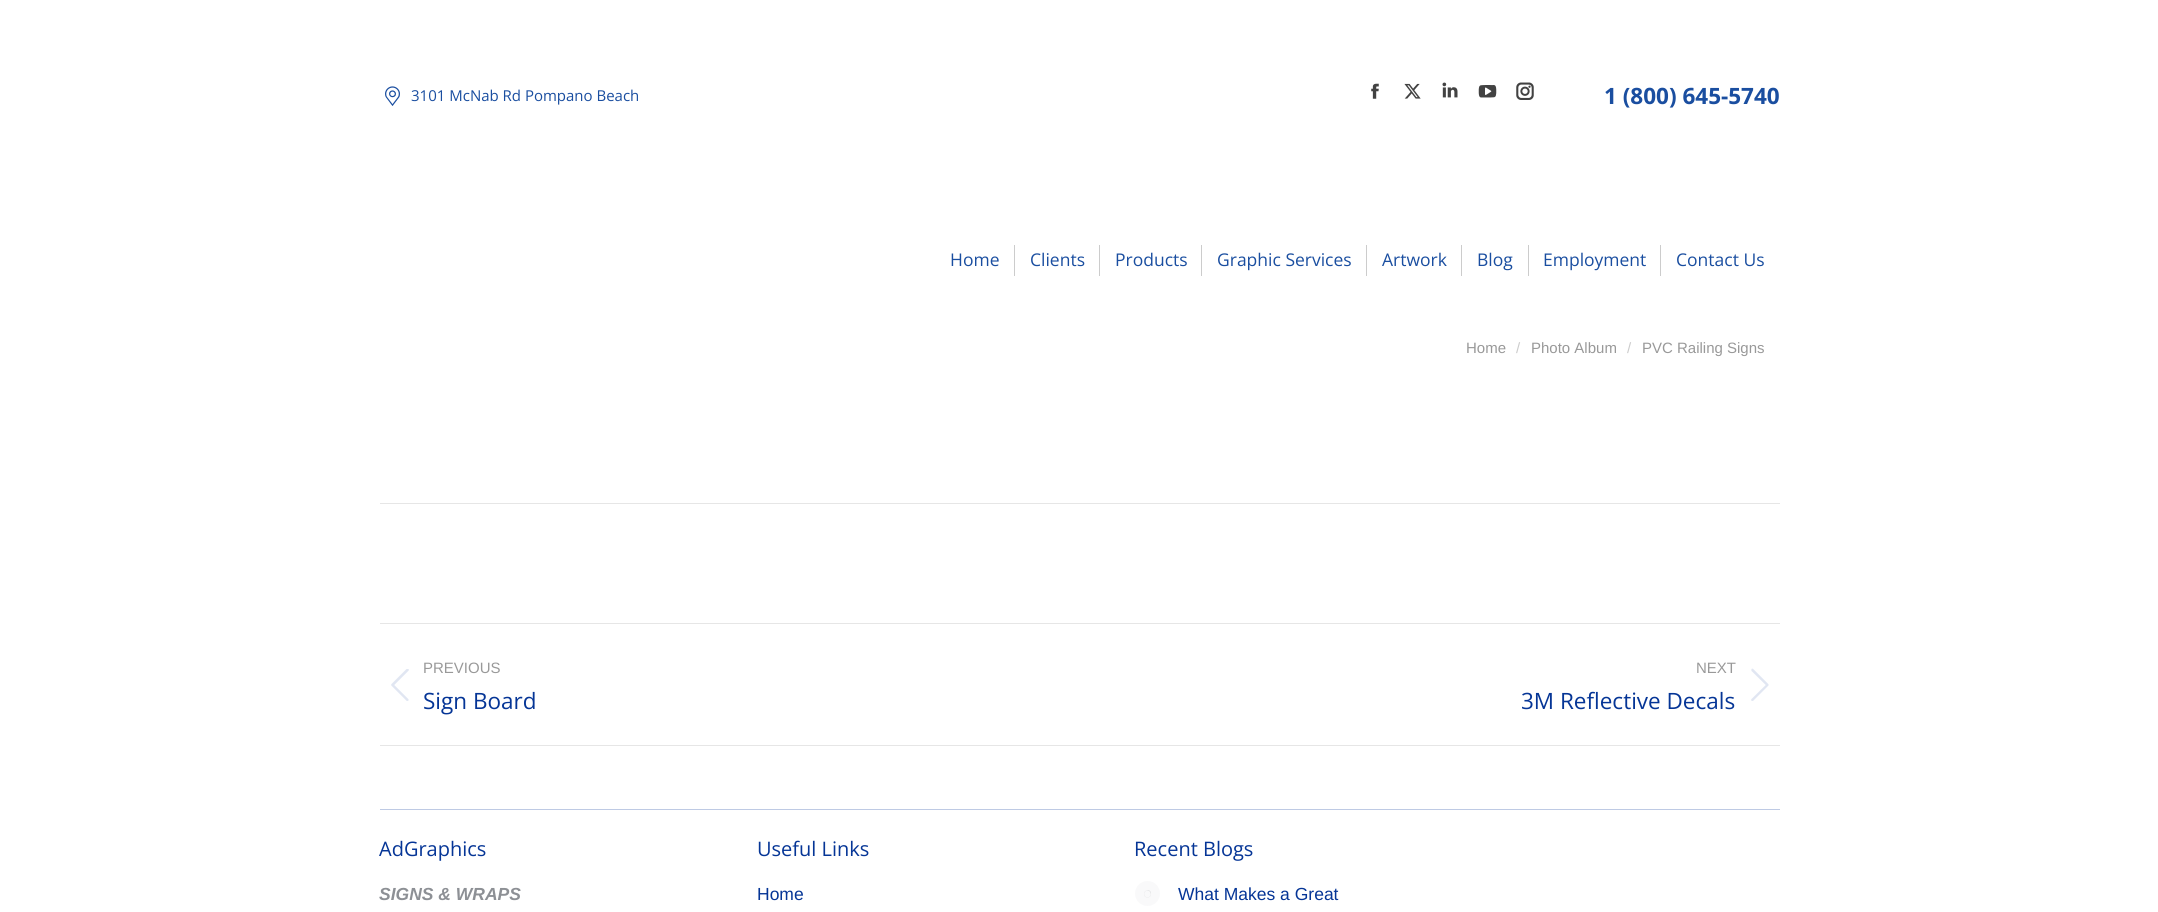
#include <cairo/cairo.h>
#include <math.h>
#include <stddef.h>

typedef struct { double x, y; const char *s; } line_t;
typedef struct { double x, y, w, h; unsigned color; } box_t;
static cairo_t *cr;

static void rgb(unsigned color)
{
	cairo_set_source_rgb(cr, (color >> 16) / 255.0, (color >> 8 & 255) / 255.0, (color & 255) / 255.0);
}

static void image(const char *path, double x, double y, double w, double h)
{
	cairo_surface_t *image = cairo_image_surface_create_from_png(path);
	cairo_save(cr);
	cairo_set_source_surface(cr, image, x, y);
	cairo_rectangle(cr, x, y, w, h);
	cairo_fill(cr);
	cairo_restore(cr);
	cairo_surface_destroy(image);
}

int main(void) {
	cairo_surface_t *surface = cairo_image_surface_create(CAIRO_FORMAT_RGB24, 2158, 912);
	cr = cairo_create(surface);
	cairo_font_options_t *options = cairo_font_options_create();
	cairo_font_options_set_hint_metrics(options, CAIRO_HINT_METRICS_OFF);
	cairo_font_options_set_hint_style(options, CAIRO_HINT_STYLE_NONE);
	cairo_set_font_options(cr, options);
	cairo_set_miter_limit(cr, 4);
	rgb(0xffffff);
	cairo_paint(cr);
	image("img/1.png", 385, 86, 15, 20);
	image("img/2.png", 1371, 83, 8, 16);
	image("img/3.png", 1404, 83, 17, 16);
	image("img/4.png", 1442, 82, 16, 16);
	image("img/5.png", 1478, 85, 19, 13);
	image("img/6.png", 1516, 82, 18, 18);
	{
		static const box_t items[] = {
			{1014, 245, 1, 31, 0xcccccc},
			{1099, 245, 1, 31, 0xcccccc},
			{1201, 245, 1, 31, 0xcccccc},
			{1366, 245, 1, 31, 0xcccccc},
			{1461, 245, 1, 31, 0xcccccc},
			{1528, 245, 1, 31, 0xcccccc},
			{1660, 245, 1, 31, 0xcccccc},
			{380, 503, 1400, 1, 0xe6e6e6},
			{380, 623, 1400, 1, 0xe6e6e6},
			{380, 745, 1400, 1, 0xe6e6e6},
		};
		for (size_t i = 0; i < sizeof items / sizeof *items; i++) {
			rgb(items[i].color);
			cairo_rectangle(cr, items[i].x, items[i].y, items[i].w, items[i].h);
			cairo_fill(cr);
		}
	}
	image("img/7.png", 391, 669, 18, 32);
	image("img/8.png", 1751, 668, 18, 33);
	rgb(0xbecae4);
	cairo_rectangle(cr, 380, 809, 1400, 1);
	cairo_fill(cr);
	rgb(0xf9f9fa);
	cairo_arc(cr, 1147.5, 893.5, 12.5, 0, 2 * M_PI);
	cairo_fill(cr);
	image("img/9.png", 1144, 890, 7, 8);
	cairo_select_font_face(cr, "Open Sans", CAIRO_FONT_SLANT_NORMAL, CAIRO_FONT_WEIGHT_NORMAL);
	cairo_set_font_size(cr, 15);
	rgb(0x1a4ea0);
	cairo_move_to(cr, 411, 101);
	cairo_show_text(cr, "3101 McNab Rd Pompano Beach");
	cairo_select_font_face(cr, "Open Sans", CAIRO_FONT_SLANT_NORMAL, CAIRO_FONT_WEIGHT_BOLD);
	cairo_set_font_size(cr, 22.5);
	cairo_move_to(cr, 1604, 104);
	cairo_show_text(cr, "1 (800) 645-5740");
	cairo_select_font_face(cr, "Open Sans", CAIRO_FONT_SLANT_NORMAL, CAIRO_FONT_WEIGHT_NORMAL);
	cairo_set_font_size(cr, 17.5);
	{
		static const line_t items[] = {
			{950, 266, "Home"},
			{1030, 266, "Clients"},
			{1115, 266, "Products"},
			{1217, 266, "Graphic Services"},
			{1382, 266, "Artwork"},
			{1477, 266, "Blog"},
			{1543, 266, "Employment"},
			{1676, 266, "Contact Us"},
		};
		for (size_t i = 0; i < sizeof items / sizeof *items; i++) {
			cairo_move_to(cr, items[i].x, items[i].y);
			cairo_show_text(cr, items[i].s);
		}
	}
	cairo_select_font_face(cr, "Liberation Sans", CAIRO_FONT_SLANT_NORMAL, CAIRO_FONT_WEIGHT_NORMAL);
	cairo_set_font_size(cr, 15);
	rgb(0x999999);
	cairo_move_to(cr, 1466, 353);
	cairo_show_text(cr, "Home");
	rgb(0xcccccc);
	cairo_move_to(cr, 1516, 353);
	cairo_show_text(cr, "/");
	rgb(0x999999);
	cairo_move_to(cr, 1531, 353);
	cairo_show_text(cr, "Photo Album");
	rgb(0xcccccc);
	cairo_move_to(cr, 1627, 353);
	cairo_show_text(cr, "/");
	rgb(0x999999);
	cairo_move_to(cr, 1642, 353);
	cairo_show_text(cr, "PVC Railing Signs");
	cairo_move_to(cr, 423, 673);
	cairo_show_text(cr, "PREVIOUS");
	cairo_select_font_face(cr, "Open Sans", CAIRO_FONT_SLANT_NORMAL, CAIRO_FONT_WEIGHT_NORMAL);
	cairo_set_font_size(cr, 22.5);
	rgb(0x053596);
	cairo_move_to(cr, 423, 709);
	cairo_show_text(cr, "Sign Board");
	cairo_select_font_face(cr, "Liberation Sans", CAIRO_FONT_SLANT_NORMAL, CAIRO_FONT_WEIGHT_NORMAL);
	cairo_set_font_size(cr, 15);
	rgb(0x999999);
	cairo_move_to(cr, 1696, 673);
	cairo_show_text(cr, "NEXT");
	cairo_select_font_face(cr, "Open Sans", CAIRO_FONT_SLANT_NORMAL, CAIRO_FONT_WEIGHT_NORMAL);
	cairo_set_font_size(cr, 22.5);
	rgb(0x053596);
	cairo_move_to(cr, 1521, 709);
	cairo_show_text(cr, "3M Reflective Decals");
	cairo_set_font_size(cr, 20);
	cairo_move_to(cr, 379, 856);
	cairo_show_text(cr, "AdGraphics");
	cairo_select_font_face(cr, "Liberation Sans", CAIRO_FONT_SLANT_ITALIC, CAIRO_FONT_WEIGHT_BOLD);
	cairo_set_font_size(cr, 17.5);
	rgb(0x8d9095);
	cairo_move_to(cr, 379, 900);
	cairo_show_text(cr, "SIGNS & WRAPS");
	cairo_select_font_face(cr, "Open Sans", CAIRO_FONT_SLANT_NORMAL, CAIRO_FONT_WEIGHT_NORMAL);
	cairo_set_font_size(cr, 20);
	rgb(0x053596);
	cairo_move_to(cr, 757, 856);
	cairo_show_text(cr, "Useful Links");
	cairo_select_font_face(cr, "Liberation Sans", CAIRO_FONT_SLANT_NORMAL, CAIRO_FONT_WEIGHT_NORMAL);
	cairo_set_font_size(cr, 17.5);
	cairo_move_to(cr, 757, 900);
	cairo_show_text(cr, "Home");
	cairo_select_font_face(cr, "Open Sans", CAIRO_FONT_SLANT_NORMAL, CAIRO_FONT_WEIGHT_NORMAL);
	cairo_set_font_size(cr, 20);
	cairo_move_to(cr, 1134, 856);
	cairo_show_text(cr, "Recent Blogs");
	cairo_select_font_face(cr, "Liberation Sans", CAIRO_FONT_SLANT_NORMAL, CAIRO_FONT_WEIGHT_NORMAL);
	cairo_set_font_size(cr, 17.5);
	cairo_move_to(cr, 1178, 900);
	cairo_show_text(cr, "What Makes a Great");
	cairo_surface_write_to_png(surface, "page.png");
	cairo_font_options_destroy(options);
	cairo_destroy(cr);
	cairo_surface_destroy(surface);
	return 0;
}
